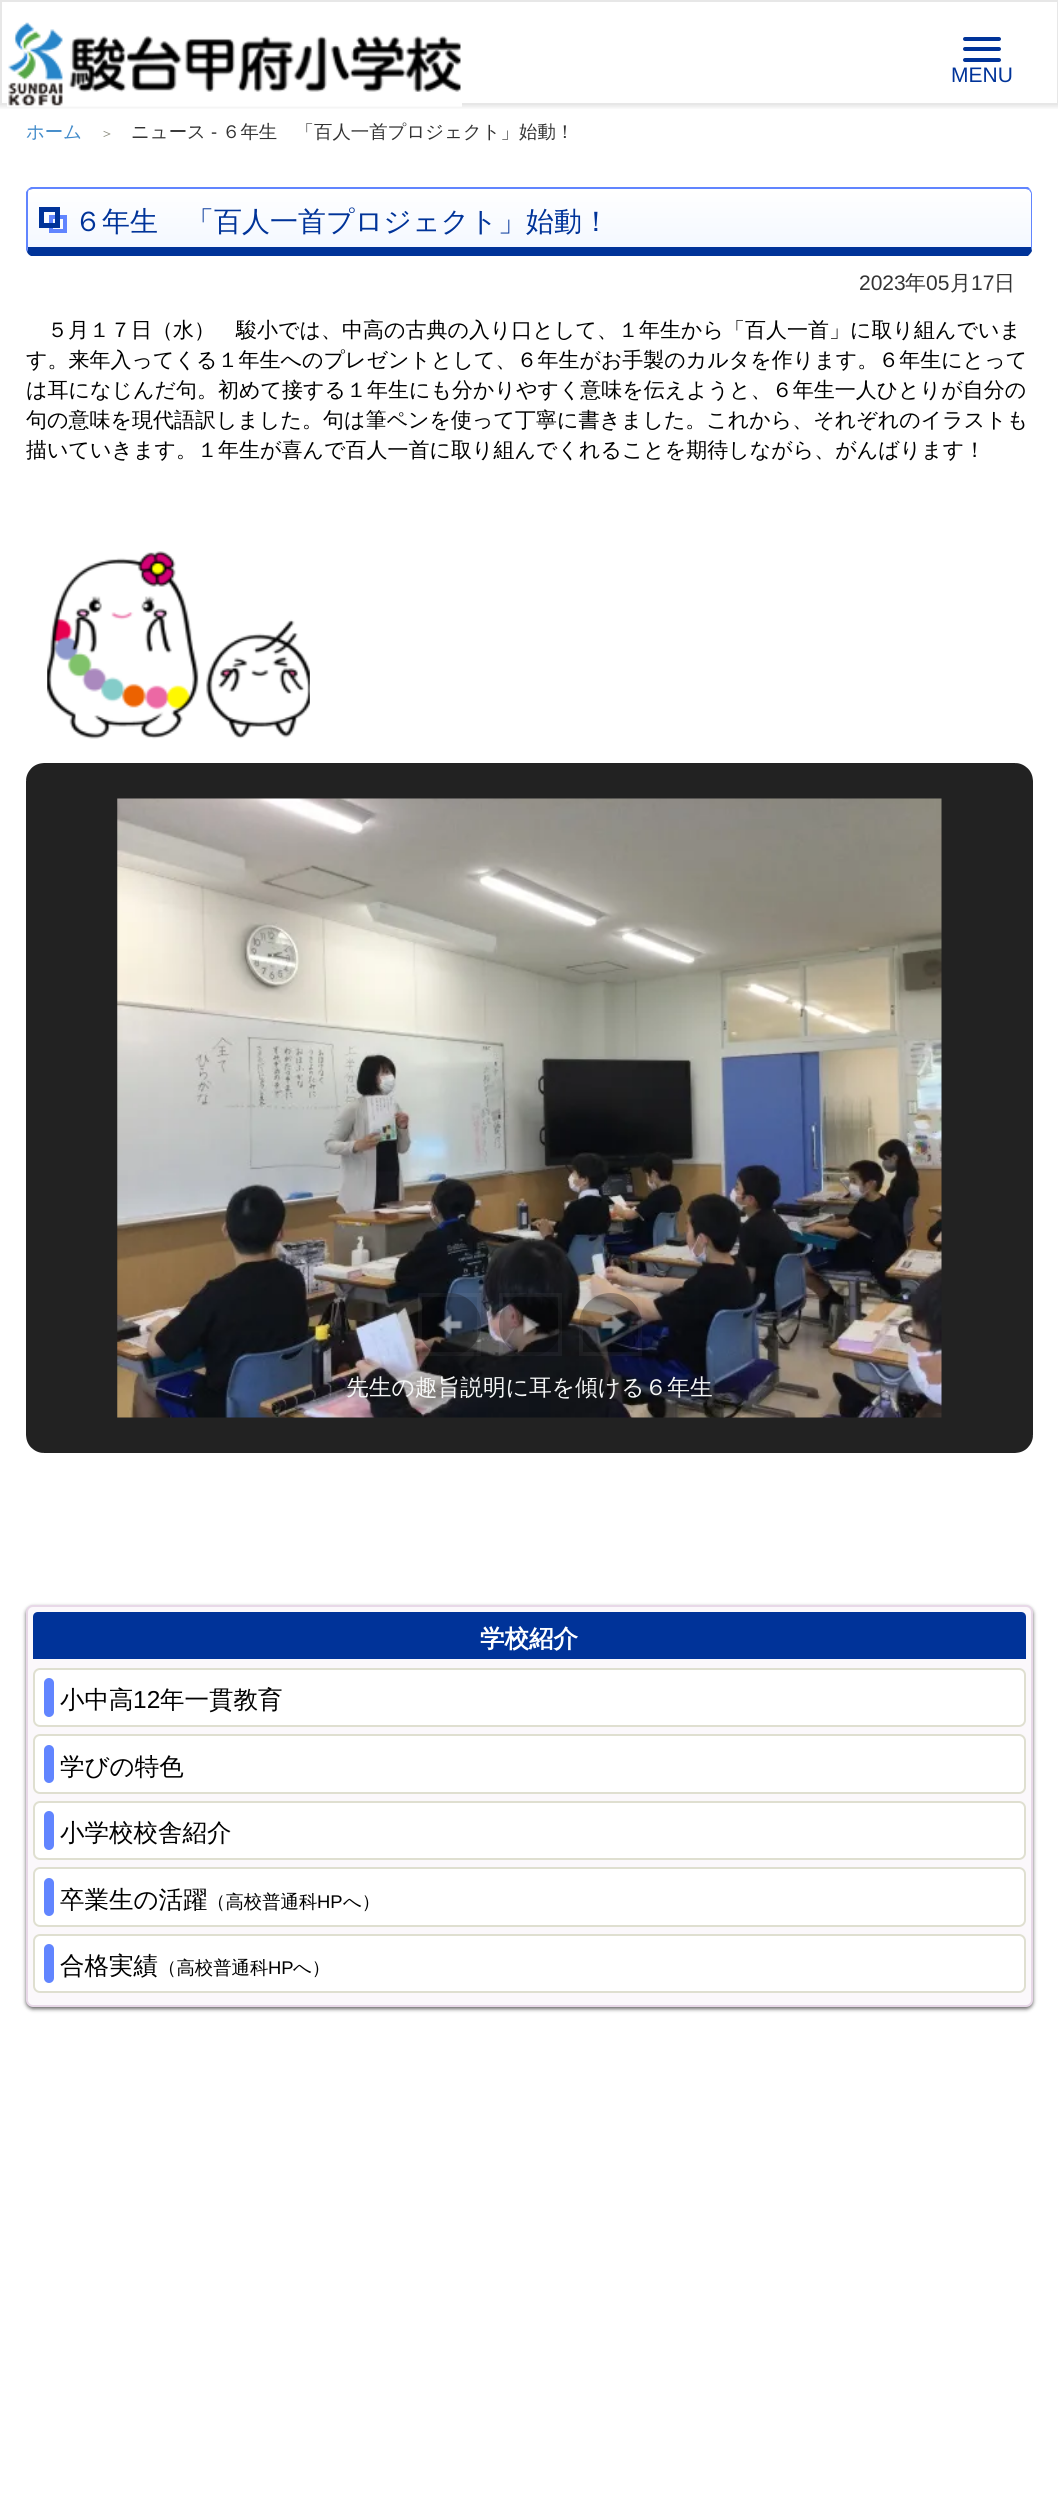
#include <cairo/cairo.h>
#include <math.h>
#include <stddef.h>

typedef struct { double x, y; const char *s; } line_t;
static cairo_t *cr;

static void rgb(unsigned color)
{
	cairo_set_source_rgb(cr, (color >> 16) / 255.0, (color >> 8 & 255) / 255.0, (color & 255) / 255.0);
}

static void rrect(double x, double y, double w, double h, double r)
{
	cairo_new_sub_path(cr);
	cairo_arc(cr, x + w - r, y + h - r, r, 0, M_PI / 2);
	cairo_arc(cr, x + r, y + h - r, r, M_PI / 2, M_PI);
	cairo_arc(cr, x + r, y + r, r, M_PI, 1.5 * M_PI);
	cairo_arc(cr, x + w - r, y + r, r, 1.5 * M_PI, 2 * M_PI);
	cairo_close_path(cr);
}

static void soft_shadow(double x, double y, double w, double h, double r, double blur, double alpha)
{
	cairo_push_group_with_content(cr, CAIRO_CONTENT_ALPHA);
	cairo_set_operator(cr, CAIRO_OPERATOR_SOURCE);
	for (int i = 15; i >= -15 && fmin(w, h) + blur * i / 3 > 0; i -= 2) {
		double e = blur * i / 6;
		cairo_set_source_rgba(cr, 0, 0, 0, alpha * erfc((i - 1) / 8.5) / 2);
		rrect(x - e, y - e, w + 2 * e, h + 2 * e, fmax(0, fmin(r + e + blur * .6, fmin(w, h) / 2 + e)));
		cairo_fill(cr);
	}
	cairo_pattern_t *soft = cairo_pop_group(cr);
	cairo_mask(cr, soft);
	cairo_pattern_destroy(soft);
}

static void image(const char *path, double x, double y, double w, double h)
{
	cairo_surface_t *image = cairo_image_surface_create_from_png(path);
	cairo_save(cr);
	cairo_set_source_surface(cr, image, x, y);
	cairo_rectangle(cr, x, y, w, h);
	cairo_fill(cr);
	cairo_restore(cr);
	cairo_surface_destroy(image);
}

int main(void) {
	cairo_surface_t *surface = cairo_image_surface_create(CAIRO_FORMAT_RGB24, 1058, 2509);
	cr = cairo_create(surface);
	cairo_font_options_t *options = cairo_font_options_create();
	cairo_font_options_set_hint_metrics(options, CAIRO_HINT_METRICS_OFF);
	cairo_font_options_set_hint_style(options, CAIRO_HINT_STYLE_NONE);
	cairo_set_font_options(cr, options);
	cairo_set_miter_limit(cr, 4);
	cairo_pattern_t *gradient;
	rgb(0xffffff);
	cairo_paint(cr);
	cairo_save(cr);
	cairo_rectangle(cr, 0, 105, 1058, 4);
	cairo_clip(cr);
	rgb(0x000000);
	soft_shadow(-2, -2, 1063, 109, 0, 2.5, 0.1);
	cairo_restore(cr);
	cairo_rectangle(cr, 1, 1, 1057, 103);
	rgb(0xe7e7e7);
	cairo_stroke(cr);
	image("img/1.png", 7, 22, 455, 85);
	rgb(0x003399);
	rrect(963, 37, 38, 4, 2);
	cairo_fill(cr);
	rrect(963, 47, 38, 4, 2);
	cairo_fill(cr);
	rrect(963, 58, 38, 4, 2);
	cairo_fill(cr);
	gradient = cairo_pattern_create_linear(529, 189, 529, 247);
	cairo_pattern_add_color_stop_rgba(gradient, 0, 1, 1, 1, 1);
	cairo_pattern_add_color_stop_rgba(gradient, 1, 0.957, 0.973, 1, 1);
	cairo_set_source(cr, gradient);
	cairo_pattern_destroy(gradient);
	cairo_new_path(cr);
	cairo_move_to(cr, 33, 189);
	cairo_line_to(cr, 1026, 189);
	cairo_curve_to(cr, 1028, 189, 1031, 191, 1031, 194);
	cairo_line_to(cr, 1031, 247);
	cairo_line_to(cr, 28, 247);
	cairo_line_to(cr, 28, 194);
	cairo_curve_to(cr, 28, 191, 30, 189, 33, 189);
	cairo_close_path(cr);
	cairo_fill(cr);
	rgb(0x6185ff);
	cairo_new_path(cr);
	cairo_move_to(cr, 33, 189);
	cairo_curve_to(cr, 32, 189, 30, 190, 29, 190);
	cairo_line_to(cr, 28, 189);
	cairo_line_to(cr, 31, 187);
	cairo_line_to(cr, 1028, 187);
	cairo_line_to(cr, 1030, 189);
	cairo_line_to(cr, 1029, 190);
	cairo_line_to(cr, 1026, 189);
	cairo_close_path(cr);
	cairo_fill(cr);
	cairo_new_path(cr);
	cairo_move_to(cr, 1030, 189);
	cairo_curve_to(cr, 1031, 191, 1032, 192, 1032, 194);
	cairo_line_to(cr, 1032, 248);
	cairo_line_to(cr, 1032, 251);
	cairo_line_to(cr, 1031, 247);
	cairo_line_to(cr, 1031, 193);
	cairo_line_to(cr, 1029, 190);
	cairo_close_path(cr);
	cairo_fill(cr);
	rgb(0x003399);
	cairo_new_path(cr);
	cairo_move_to(cr, 31, 256);
	cairo_curve_to(cr, 29, 255, 28, 254, 27, 252);
	cairo_line_to(cr, 28, 247);
	cairo_line_to(cr, 1031, 247);
	cairo_line_to(cr, 1032, 251);
	cairo_curve_to(cr, 1031, 253, 1029, 255, 1028, 256);
	cairo_close_path(cr);
	cairo_fill(cr);
	rgb(0x6185ff);
	cairo_new_path(cr);
	cairo_move_to(cr, 26, 192);
	cairo_line_to(cr, 28, 189);
	cairo_line_to(cr, 29, 190);
	cairo_curve_to(cr, 28, 191, 28, 192, 28, 194);
	cairo_line_to(cr, 28, 247);
	cairo_line_to(cr, 27, 252);
	cairo_line_to(cr, 26, 250);
	cairo_close_path(cr);
	cairo_fill(cr);
	cairo_rectangle(cr, 51, 217, 14, 14);
	cairo_set_line_width(cr, 4);
	cairo_stroke(cr);
	cairo_rectangle(cr, 41.5, 209.5, 16, 16);
	rgb(0x003399);
	cairo_set_line_width(cr, 5);
	cairo_stroke(cr);
	image("img/2.png", 47, 551, 263, 188);
	rgb(0x222222);
	rrect(43.5, 780.5, 972, 655, 0.5);
	cairo_fill_preserve(cr);
	cairo_set_line_width(cr, 35);
	cairo_stroke(cr);
	image("img/6.png", 117, 798, 825, 620);
	cairo_set_source_rgba(cr, 0, 0, 0, 0.3);
	cairo_arc(cr, 449.5, 1324.5, 31.5, 0, 2 * M_PI);
	cairo_fill(cr);
	image("img/3.png", 437, 1314, 28, 22);
	cairo_rectangle(cr, 420, 1295, 59, 59);
	cairo_set_source_rgba(cr, 1, 1, 1, 0.05);
	cairo_set_line_width(cr, 4);
	cairo_stroke(cr);
	cairo_set_source_rgba(cr, 0, 0, 0, 0.3);
	cairo_arc(cr, 530.5, 1324.5, 31.5, 0, 2 * M_PI);
	cairo_fill(cr);
	image("img/4.png", 523, 1314, 18, 23);
	cairo_rectangle(cr, 501, 1295, 59, 59);
	cairo_set_source_rgba(cr, 1, 1, 1, 0.05);
	cairo_stroke(cr);
	cairo_set_source_rgba(cr, 0, 0, 0, 0.3);
	cairo_arc(cr, 610.5, 1324.5, 31.5, 0, 2 * M_PI);
	cairo_fill(cr);
	image("img/5.png", 600, 1314, 27, 23);
	cairo_rectangle(cr, 581, 1295, 59, 59);
	cairo_set_source_rgba(cr, 1, 1, 1, 0.05);
	cairo_stroke(cr);
	rgb(0x000000);
	soft_shadow(26, 1607, 1007, 402, 7, 2, 0.6);
	rgb(0xfbf8fb);
	rrect(27, 1606, 1005, 400, 6);
	cairo_fill_preserve(cr);
	rgb(0xe8d8e8);
	cairo_set_line_width(cr, 2);
	cairo_stroke(cr);
	rgb(0x003399);
	cairo_new_path(cr);
	cairo_move_to(cr, 38, 1612);
	cairo_line_to(cr, 1021, 1612);
	cairo_curve_to(cr, 1024, 1612, 1026, 1614, 1026, 1617);
	cairo_line_to(cr, 1026, 1659);
	cairo_line_to(cr, 33, 1659);
	cairo_line_to(cr, 33, 1617);
	cairo_curve_to(cr, 33, 1614, 35, 1612, 38, 1612);
	cairo_close_path(cr);
	cairo_fill(cr);
	rgb(0xffffff);
	rrect(34, 1669, 991, 57, 6);
	cairo_fill_preserve(cr);
	rgb(0xdfdfd0);
	cairo_stroke(cr);
	rgb(0x6185ff);
	rrect(44, 1678, 10, 39, 5);
	cairo_fill(cr);
	rgb(0xffffff);
	rrect(34, 1735, 991, 58, 6);
	cairo_fill_preserve(cr);
	rgb(0xdfdfd0);
	cairo_stroke(cr);
	rgb(0x6185ff);
	rrect(44, 1745, 10, 38, 5);
	cairo_fill(cr);
	rgb(0xffffff);
	rrect(34, 1802, 991, 57, 6);
	cairo_fill_preserve(cr);
	rgb(0xdfdfd0);
	cairo_stroke(cr);
	rgb(0x6185ff);
	rrect(44, 1811, 10, 39, 5);
	cairo_fill(cr);
	rgb(0xffffff);
	rrect(34, 1868, 991, 58, 6);
	cairo_fill_preserve(cr);
	rgb(0xdfdfd0);
	cairo_stroke(cr);
	rgb(0x6185ff);
	rrect(44, 1878, 10, 38, 5);
	cairo_fill(cr);
	rgb(0xffffff);
	rrect(34, 1935, 991, 57, 6);
	cairo_fill_preserve(cr);
	rgb(0xdfdfd0);
	cairo_stroke(cr);
	rgb(0x6185ff);
	rrect(44, 1944, 10, 39, 5);
	cairo_fill(cr);
	cairo_select_font_face(cr, "Liberation Sans", CAIRO_FONT_SLANT_NORMAL, CAIRO_FONT_WEIGHT_NORMAL);
	cairo_set_font_size(cr, 21);
	rgb(0x003399);
	cairo_move_to(cr, 951, 82);
	cairo_show_text(cr, "MENU");
	cairo_select_font_face(cr, "WenQuanYi Zen Hei Medium", CAIRO_FONT_SLANT_NORMAL, CAIRO_FONT_WEIGHT_NORMAL);
	cairo_set_font_size(cr, 18.4);
	rgb(0x428bca);
	cairo_move_to(cr, 26, 138);
	cairo_show_text(cr, "ホーム");
	cairo_set_font_size(cr, 14);
	rgb(0x8a8a7b);
	cairo_move_to(cr, 100, 138);
	cairo_show_text(cr, "＞");
	cairo_set_font_size(cr, 18.4);
	rgb(0x333333);
	cairo_move_to(cr, 131, 138);
	cairo_show_text(cr, "ニュース");
	cairo_select_font_face(cr, "Liberation Sans", CAIRO_FONT_SLANT_NORMAL, CAIRO_FONT_WEIGHT_NORMAL);
	cairo_move_to(cr, 211, 138);
	cairo_show_text(cr, "-");
	cairo_select_font_face(cr, "WenQuanYi Zen Hei Medium", CAIRO_FONT_SLANT_NORMAL, CAIRO_FONT_WEIGHT_NORMAL);
	cairo_move_to(cr, 222, 138);
	cairo_show_text(cr, "６年生　「百人一首プロジェクト」始動！");
	cairo_set_font_size(cr, 28);
	rgb(0x003399);
	cairo_move_to(cr, 74, 231);
	cairo_show_text(cr, "６年生　「百人一首プロジェクト」始動！");
	cairo_select_font_face(cr, "Liberation Sans", CAIRO_FONT_SLANT_NORMAL, CAIRO_FONT_WEIGHT_NORMAL);
	cairo_set_font_size(cr, 21);
	rgb(0x333333);
	cairo_move_to(cr, 859, 290);
	cairo_show_text(cr, "2023");
	cairo_select_font_face(cr, "WenQuanYi Zen Hei Medium", CAIRO_FONT_SLANT_NORMAL, CAIRO_FONT_WEIGHT_NORMAL);
	cairo_move_to(cr, 905, 290);
	cairo_show_text(cr, "年");
	cairo_select_font_face(cr, "Liberation Sans", CAIRO_FONT_SLANT_NORMAL, CAIRO_FONT_WEIGHT_NORMAL);
	cairo_move_to(cr, 926, 290);
	cairo_show_text(cr, "05");
	cairo_select_font_face(cr, "WenQuanYi Zen Hei Medium", CAIRO_FONT_SLANT_NORMAL, CAIRO_FONT_WEIGHT_NORMAL);
	cairo_move_to(cr, 950, 290);
	cairo_show_text(cr, "月");
	cairo_select_font_face(cr, "Liberation Sans", CAIRO_FONT_SLANT_NORMAL, CAIRO_FONT_WEIGHT_NORMAL);
	cairo_move_to(cr, 971, 290);
	cairo_show_text(cr, "17");
	cairo_select_font_face(cr, "WenQuanYi Zen Hei Medium", CAIRO_FONT_SLANT_NORMAL, CAIRO_FONT_WEIGHT_NORMAL);
	cairo_move_to(cr, 994, 290);
	cairo_show_text(cr, "日");
	rgb(0x000000);
	{
		static const line_t items[] = {
			{47, 337, "５月１７日（水）　駿小では、中高の古典の入り口として、１年生から「百人一首」に取り組んでいま"},
			{26, 367, "す。来年入ってくる１年生へのプレゼントとして、６年生がお手製のカルタを作ります。６年生にとって"},
			{26, 397, "は耳になじんだ句。初めて接する１年生にも分かりやすく意味を伝えようと、６年生一人ひとりが自分の"},
			{26, 427, "句の意味を現代語訳しました。句は筆ペンを使って丁寧に書きました。これから、それぞれのイラストも"},
			{26, 457, "描いていきます。１年生が喜んで百人一首に取り組んでくれることを期待しながら、がんばります！"},
		};
		for (size_t i = 0; i < sizeof items / sizeof *items; i++) {
			cairo_move_to(cr, items[i].x, items[i].y);
			cairo_show_text(cr, items[i].s);
		}
	}
	cairo_set_font_size(cr, 22.75);
	rgb(0xf6f7f7);
	cairo_move_to(cr, 346, 1395);
	cairo_show_text(cr, "先生の趣旨説明に耳を傾ける６年生");
	cairo_select_font_face(cr, "WenQuanYi Zen Hei", CAIRO_FONT_SLANT_NORMAL, CAIRO_FONT_WEIGHT_BOLD);
	cairo_set_font_size(cr, 24.5);
	rgb(0xffffff);
	cairo_move_to(cr, 480, 1647);
	cairo_show_text(cr, "学校紹介");
	cairo_select_font_face(cr, "WenQuanYi Zen Hei Medium", CAIRO_FONT_SLANT_NORMAL, CAIRO_FONT_WEIGHT_NORMAL);
	rgb(0x000000);
	cairo_move_to(cr, 60, 1708);
	cairo_show_text(cr, "小中高");
	cairo_select_font_face(cr, "Liberation Sans", CAIRO_FONT_SLANT_NORMAL, CAIRO_FONT_WEIGHT_NORMAL);
	cairo_move_to(cr, 133, 1708);
	cairo_show_text(cr, "12");
	cairo_select_font_face(cr, "WenQuanYi Zen Hei Medium", CAIRO_FONT_SLANT_NORMAL, CAIRO_FONT_WEIGHT_NORMAL);
	{
		static const line_t items[] = {
			{160, 1708, "年一貫教育"},
			{60, 1775, "学びの特色"},
			{60, 1841, "小学校校舎紹介"},
			{60, 1908, "卒業生の活躍"},
		};
		for (size_t i = 0; i < sizeof items / sizeof *items; i++) {
			cairo_move_to(cr, items[i].x, items[i].y);
			cairo_show_text(cr, items[i].s);
		}
	}
	cairo_set_font_size(cr, 18.4);
	cairo_move_to(cr, 207, 1908);
	cairo_show_text(cr, "（高校普通科");
	cairo_select_font_face(cr, "Liberation Sans", CAIRO_FONT_SLANT_NORMAL, CAIRO_FONT_WEIGHT_NORMAL);
	cairo_move_to(cr, 317, 1908);
	cairo_show_text(cr, "HP");
	cairo_select_font_face(cr, "WenQuanYi Zen Hei Medium", CAIRO_FONT_SLANT_NORMAL, CAIRO_FONT_WEIGHT_NORMAL);
	cairo_move_to(cr, 343, 1908);
	cairo_show_text(cr, "へ）");
	cairo_set_font_size(cr, 24.5);
	cairo_move_to(cr, 60, 1974);
	cairo_show_text(cr, "合格実績");
	cairo_set_font_size(cr, 18.4);
	cairo_move_to(cr, 158, 1974);
	cairo_show_text(cr, "（高校普通科");
	cairo_select_font_face(cr, "Liberation Sans", CAIRO_FONT_SLANT_NORMAL, CAIRO_FONT_WEIGHT_NORMAL);
	cairo_move_to(cr, 268, 1974);
	cairo_show_text(cr, "HP");
	cairo_select_font_face(cr, "WenQuanYi Zen Hei Medium", CAIRO_FONT_SLANT_NORMAL, CAIRO_FONT_WEIGHT_NORMAL);
	cairo_move_to(cr, 293, 1974);
	cairo_show_text(cr, "へ）");
	cairo_surface_write_to_png(surface, "page.png");
	cairo_font_options_destroy(options);
	cairo_destroy(cr);
	cairo_surface_destroy(surface);
	return 0;
}
